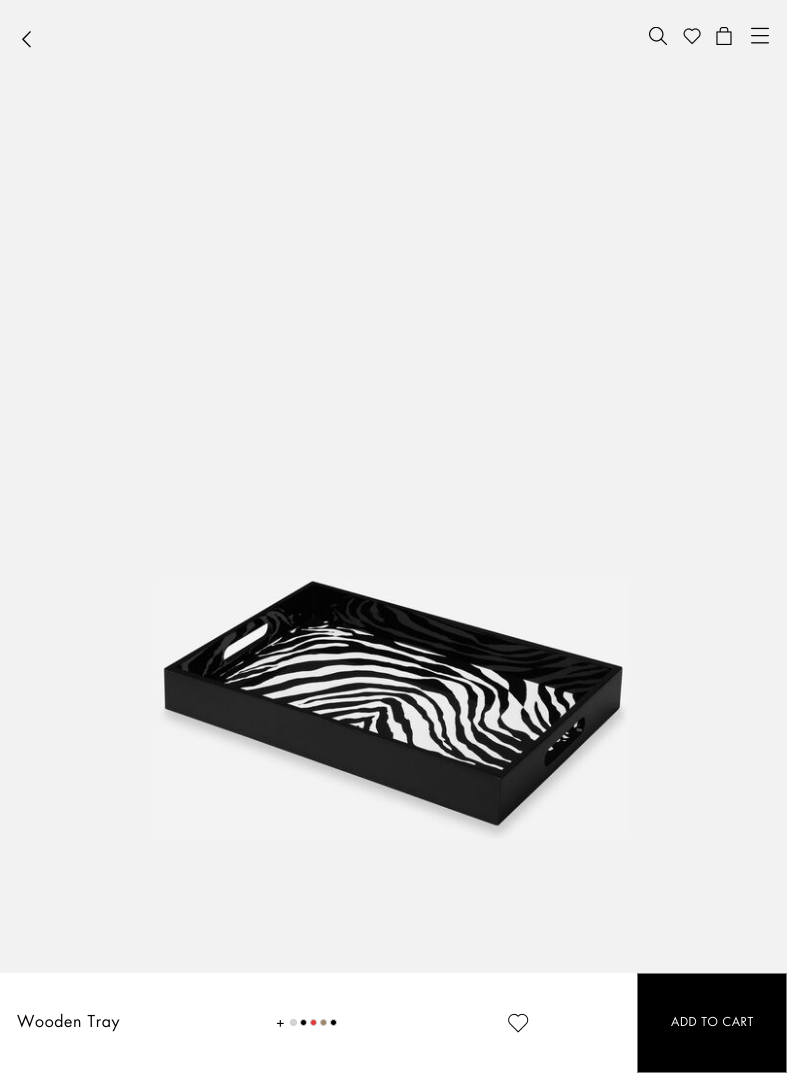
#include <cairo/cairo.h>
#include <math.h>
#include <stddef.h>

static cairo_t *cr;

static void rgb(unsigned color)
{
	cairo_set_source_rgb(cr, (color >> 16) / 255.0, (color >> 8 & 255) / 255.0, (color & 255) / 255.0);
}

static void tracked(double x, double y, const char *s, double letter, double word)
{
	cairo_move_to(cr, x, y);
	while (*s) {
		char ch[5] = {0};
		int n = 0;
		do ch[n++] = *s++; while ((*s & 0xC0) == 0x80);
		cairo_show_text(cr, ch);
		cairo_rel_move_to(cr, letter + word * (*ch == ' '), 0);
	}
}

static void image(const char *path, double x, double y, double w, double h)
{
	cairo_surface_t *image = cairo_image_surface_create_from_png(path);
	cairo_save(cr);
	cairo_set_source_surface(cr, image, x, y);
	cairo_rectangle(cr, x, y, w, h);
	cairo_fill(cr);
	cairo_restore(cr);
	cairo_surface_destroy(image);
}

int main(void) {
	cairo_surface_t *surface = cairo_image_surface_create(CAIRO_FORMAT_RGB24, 787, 1073);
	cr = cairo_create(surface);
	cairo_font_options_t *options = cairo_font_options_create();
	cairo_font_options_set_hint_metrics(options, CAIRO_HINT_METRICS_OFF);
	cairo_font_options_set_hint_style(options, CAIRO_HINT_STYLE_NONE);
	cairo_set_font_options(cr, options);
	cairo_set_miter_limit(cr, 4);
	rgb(0xf2f2f2);
	cairo_paint(cr);
	cairo_save(cr);
	cairo_rectangle(cr, 649, 27, 18, 18);
	cairo_clip(cr);
	cairo_new_path(cr);
	cairo_move_to(cr, 661, 39);
	cairo_line_to(cr, 667, 45);
	cairo_move_to(cr, 661, 39);
	cairo_curve_to(cr, 667, 32.5, 657.5, 23, 651.5, 29.5);
	cairo_curve_to(cr, 645.5, 36, 655, 45, 661, 39);
	cairo_close_path(cr);
	rgb(0x000000);
	cairo_set_line_width(cr, 1.2);
	cairo_stroke(cr);
	cairo_restore(cr);
	image("img/1.png", 683, 28, 18, 17);
	image("img/2.png", 716, 27, 16, 18);
	image("img/3.png", 751, 27, 18, 17);
	image("img/4.png", 22, 31, 9, 17);
	image("img/5.png", 158, 579, 469, 260);
	rgb(0xffffff);
	cairo_rectangle(cr, 0, 973, 637, 100);
	cairo_fill(cr);
	rgb(0xd5d5d5);
	cairo_arc(cr, 293.5, 1022.5, 3, 0, 2 * M_PI);
	cairo_fill_preserve(cr);
	rgb(0xcccccc);
	cairo_set_line_width(cr, 1);
	cairo_stroke(cr);
	rgb(0x000001);
	cairo_arc(cr, 303.5, 1022.5, 3, 0, 2 * M_PI);
	cairo_fill_preserve(cr);
	rgb(0xcccccc);
	cairo_stroke(cr);
	rgb(0xe43939);
	cairo_arc(cr, 313.5, 1022.5, 3, 0, 2 * M_PI);
	cairo_fill_preserve(cr);
	rgb(0xcccccc);
	cairo_stroke(cr);
	rgb(0x9f8669);
	cairo_arc(cr, 323.5, 1022.5, 3, 0, 2 * M_PI);
	cairo_fill_preserve(cr);
	rgb(0xcccccc);
	cairo_stroke(cr);
	rgb(0x000000);
	cairo_arc(cr, 333.5, 1022.5, 3, 0, 2 * M_PI);
	cairo_fill_preserve(cr);
	rgb(0xcccccc);
	cairo_stroke(cr);
	image("img/6.png", 508, 1013, 21, 20);
	rgb(0x000000);
	cairo_rectangle(cr, 637.5, 973.5, 149, 99);
	cairo_fill_preserve(cr);
	rgb(0x7a7a7a);
	cairo_stroke(cr);
	cairo_select_font_face(cr, "Futura", CAIRO_FONT_SLANT_NORMAL, CAIRO_FONT_WEIGHT_NORMAL);
	cairo_set_font_size(cr, 16);
	rgb(0x080404);
	tracked(17, 1027, "Wooden Tray", 0.6, 0);
	cairo_set_font_size(cr, 14);
	rgb(0x000000);
	tracked(276, 1027, "+", 0.5, 0);
	cairo_set_font_size(cr, 12);
	rgb(0xffffff);
	tracked(671, 1026, "ADD TO CART", 0.5, 0);
	cairo_surface_write_to_png(surface, "page.png");
	cairo_font_options_destroy(options);
	cairo_destroy(cr);
	cairo_surface_destroy(surface);
	return 0;
}
